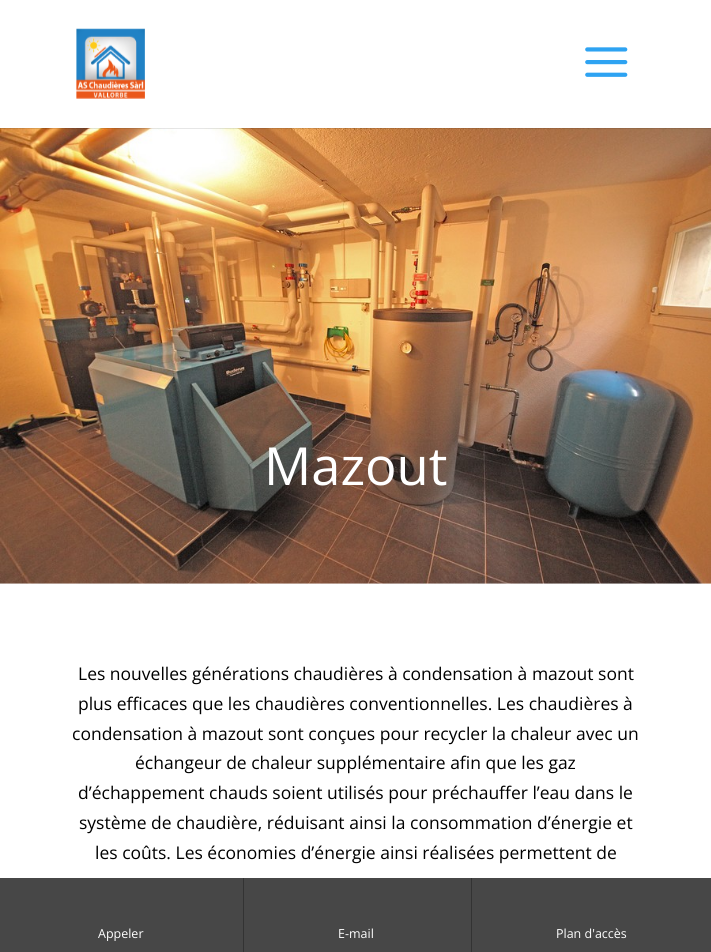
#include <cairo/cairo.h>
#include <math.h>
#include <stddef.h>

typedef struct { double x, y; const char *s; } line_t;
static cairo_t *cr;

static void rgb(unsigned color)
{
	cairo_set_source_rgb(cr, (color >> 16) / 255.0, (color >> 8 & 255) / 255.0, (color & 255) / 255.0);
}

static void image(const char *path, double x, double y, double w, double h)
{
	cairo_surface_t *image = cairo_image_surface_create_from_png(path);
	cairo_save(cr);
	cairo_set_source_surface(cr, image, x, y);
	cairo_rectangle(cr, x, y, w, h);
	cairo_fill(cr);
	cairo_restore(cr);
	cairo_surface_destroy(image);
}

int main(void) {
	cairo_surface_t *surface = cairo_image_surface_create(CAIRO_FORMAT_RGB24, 711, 952);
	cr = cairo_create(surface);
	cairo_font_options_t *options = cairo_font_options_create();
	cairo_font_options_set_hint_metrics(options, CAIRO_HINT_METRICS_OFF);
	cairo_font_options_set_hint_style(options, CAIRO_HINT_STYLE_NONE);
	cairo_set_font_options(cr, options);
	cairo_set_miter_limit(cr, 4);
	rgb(0xffffff);
	cairo_paint(cr);
	image("img/3.png", 0, 128, 711, 456);
	cairo_set_source_rgba(cr, 0, 0, 0, 0.1);
	cairo_rectangle(cr, 0, 128, 711, 1);
	cairo_fill(cr);
	image("img/1.png", 76, 28, 69, 71);
	image("img/2.png", 585, 47, 43, 30);
	cairo_set_source_rgba(cr, 0.2, 0.2, 0.2, 0.9);
	cairo_rectangle(cr, 0, 878, 711, 74);
	cairo_fill(cr);
	rgb(0x333333);
	cairo_rectangle(cr, 243, 878, 1, 74);
	cairo_fill(cr);
	cairo_rectangle(cr, 471, 878, 1, 74);
	cairo_fill(cr);
	cairo_select_font_face(cr, "Open Sans", CAIRO_FONT_SLANT_NORMAL, CAIRO_FONT_WEIGHT_NORMAL);
	cairo_set_font_size(cr, 52.5);
	rgb(0xffffff);
	cairo_move_to(cr, 264, 485);
	cairo_show_text(cr, "Mazout");
	cairo_set_font_size(cr, 17.5);
	rgb(0x000000);
	{
		static const line_t items[] = {
			{78, 680, "Les nouvelles générations chaudières à condensation à mazout sont"},
			{78, 710, "plus efficaces que les chaudières conventionnelles. Les chaudières à"},
			{72, 740, "condensation à mazout sont conçues pour recycler la chaleur avec un"},
			{135, 769, "échangeur de chaleur supplémentaire afin que les gaz"},
			{78, 799, "d’échappement chauds soient utilisés pour préchauffer l’eau dans le"},
			{79, 829, "système de chaudière, réduisant ainsi la consommation d’énergie et"},
			{95, 859, "les coûts. Les économies d’énergie ainsi réalisées permettent de"},
		};
		for (size_t i = 0; i < sizeof items / sizeof *items; i++) {
			cairo_move_to(cr, items[i].x, items[i].y);
			cairo_show_text(cr, items[i].s);
		}
	}
	cairo_set_font_size(cr, 12.5);
	rgb(0xffffff);
	{
		static const line_t items[] = {
			{98, 938, "Appeler"},
			{338, 938, "E-mail"},
			{556, 938, "Plan d'accès"},
		};
		for (size_t i = 0; i < sizeof items / sizeof *items; i++) {
			cairo_move_to(cr, items[i].x, items[i].y);
			cairo_show_text(cr, items[i].s);
		}
	}
	cairo_surface_write_to_png(surface, "page.png");
	cairo_font_options_destroy(options);
	cairo_destroy(cr);
	cairo_surface_destroy(surface);
	return 0;
}
